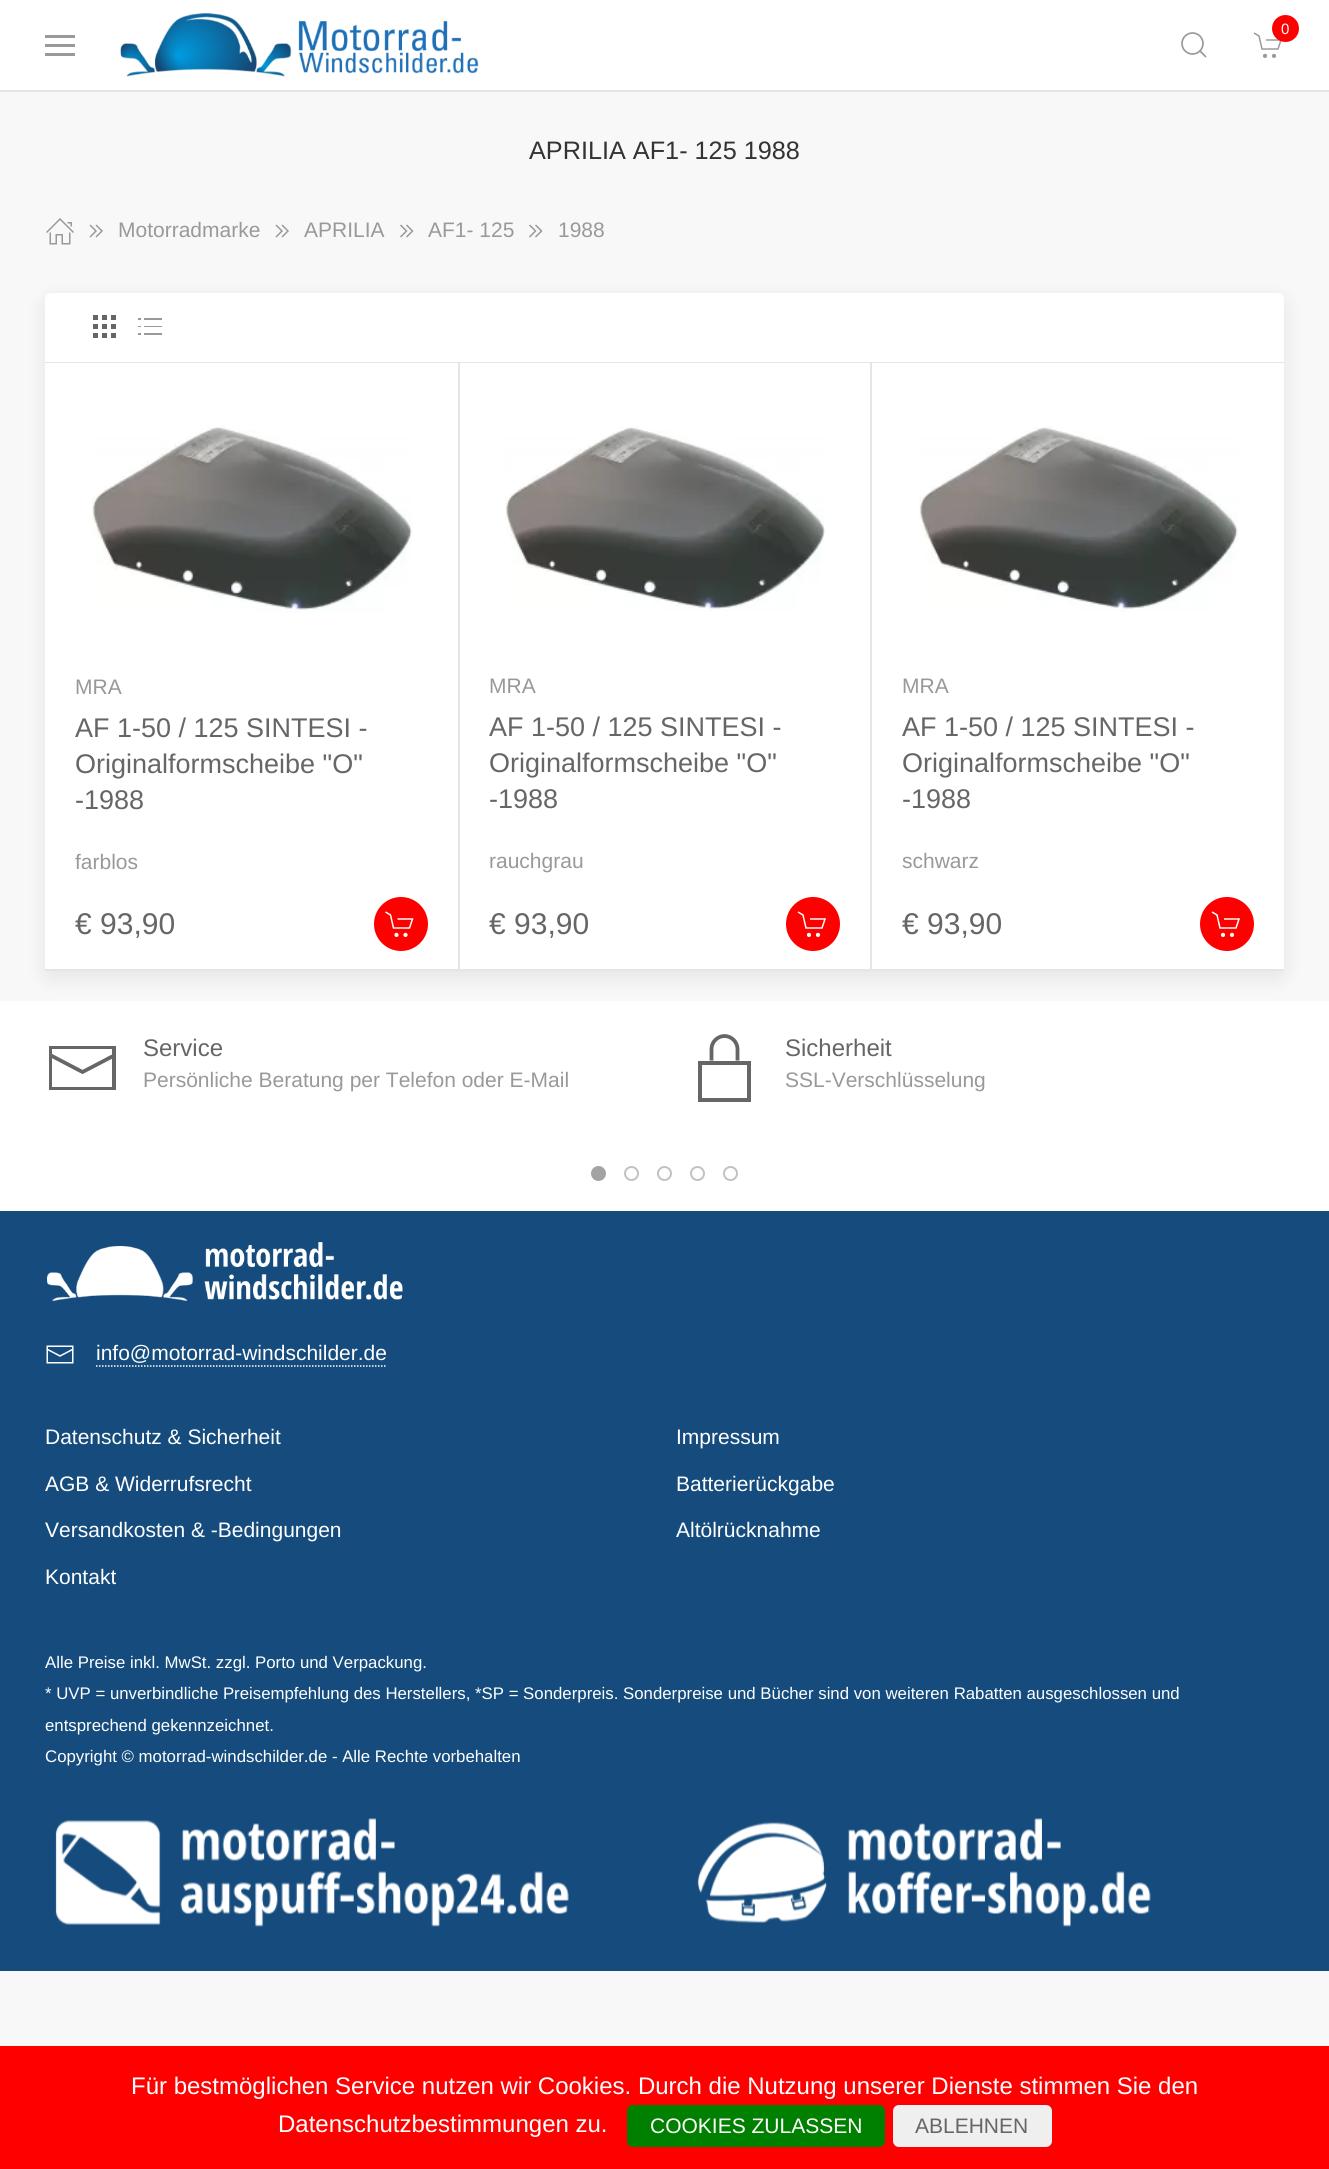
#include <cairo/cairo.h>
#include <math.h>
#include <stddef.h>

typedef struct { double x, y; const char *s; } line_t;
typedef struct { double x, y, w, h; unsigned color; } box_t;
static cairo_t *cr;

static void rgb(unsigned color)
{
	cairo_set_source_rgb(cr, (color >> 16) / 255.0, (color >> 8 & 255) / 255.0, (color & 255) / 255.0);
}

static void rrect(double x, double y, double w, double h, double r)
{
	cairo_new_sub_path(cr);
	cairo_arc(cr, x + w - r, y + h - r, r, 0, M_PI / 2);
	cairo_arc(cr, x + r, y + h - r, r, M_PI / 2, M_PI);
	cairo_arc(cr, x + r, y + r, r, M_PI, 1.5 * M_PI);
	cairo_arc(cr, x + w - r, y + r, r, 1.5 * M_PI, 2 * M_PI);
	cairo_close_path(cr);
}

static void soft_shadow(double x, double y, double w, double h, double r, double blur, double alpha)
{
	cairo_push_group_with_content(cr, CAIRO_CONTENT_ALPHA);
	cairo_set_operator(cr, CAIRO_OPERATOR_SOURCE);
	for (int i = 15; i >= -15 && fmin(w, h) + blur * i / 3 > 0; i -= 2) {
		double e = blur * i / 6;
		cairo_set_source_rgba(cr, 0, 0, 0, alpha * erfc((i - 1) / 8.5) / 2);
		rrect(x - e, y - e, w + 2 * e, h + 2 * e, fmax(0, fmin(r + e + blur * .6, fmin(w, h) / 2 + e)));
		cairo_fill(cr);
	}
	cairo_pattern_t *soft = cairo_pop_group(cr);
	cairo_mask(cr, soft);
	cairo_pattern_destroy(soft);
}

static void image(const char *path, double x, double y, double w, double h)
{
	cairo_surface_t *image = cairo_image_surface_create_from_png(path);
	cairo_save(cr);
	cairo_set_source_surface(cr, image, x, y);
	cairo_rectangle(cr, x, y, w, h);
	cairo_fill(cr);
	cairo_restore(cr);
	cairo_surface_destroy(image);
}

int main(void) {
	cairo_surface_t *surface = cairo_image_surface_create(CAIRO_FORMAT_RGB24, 1329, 2169);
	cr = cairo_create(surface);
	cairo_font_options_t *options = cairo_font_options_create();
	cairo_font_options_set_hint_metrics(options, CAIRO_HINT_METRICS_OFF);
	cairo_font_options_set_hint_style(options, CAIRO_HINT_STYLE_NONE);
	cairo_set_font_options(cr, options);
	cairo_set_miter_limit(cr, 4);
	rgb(0xf8f8f8);
	cairo_paint(cr);
	{
		static const box_t items[] = {
			{0, 0, 1329, 90, 0xffffff},
			{0, 90, 1329, 2, 0xe5e5e5},
			{45, 44, 30, 3, 0x999999},
			{45, 35, 30, 3, 0x999999},
			{45, 53, 30, 3, 0x999999},
		};
		for (size_t i = 0; i < sizeof items / sizeof *items; i++) {
			rgb(items[i].color);
			cairo_rectangle(cr, items[i].x, items[i].y, items[i].w, items[i].h);
			cairo_fill(cr);
		}
	}
	image("img/1.png", 120, 13, 359, 64);
	cairo_new_path(cr);
	cairo_move_to(cr, 1254, 33);
	cairo_line_to(cr, 1259, 36);
	cairo_line_to(cr, 1262, 49);
	cairo_line_to(cr, 1278, 49);
	cairo_line_to(cr, 1281, 40);
	cairo_line_to(cr, 1266, 40);
	cairo_set_line_width(cr, 1.5);
	cairo_stroke(cr);
	rgb(0xff0000);
	cairo_arc(cr, 1285.5, 28.5, 13.5, 0, 2 * M_PI);
	cairo_fill(cr);
	rgb(0x999999);
	cairo_arc(cr, 1265, 55.9, 2.1, 0, 2 * M_PI);
	cairo_fill(cr);
	cairo_arc(cr, 1274, 55.9, 2.1, 0, 2 * M_PI);
	cairo_fill(cr);
	cairo_arc(cr, 1192.5, 43.5, 10.5, 0, 2 * M_PI);
	cairo_set_line_width(cr, 1.7);
	cairo_stroke(cr);
	cairo_new_path(cr);
	cairo_move_to(cr, 1200, 51);
	cairo_line_to(cr, 1206, 57);
	cairo_close_path(cr);
	cairo_stroke(cr);
	image("img/2.png", 46, 218, 28, 27);
	image("img/3.png", 89, 224, 14, 14);
	image("img/3.png", 275, 224, 14, 14);
	image("img/4.png", 400, 224, 14, 14);
	image("img/4.png", 529, 224, 14, 14);
	rgb(0xffffff);
	cairo_rectangle(cr, 0, 1001, 1329, 210);
	cairo_fill(cr);
	rgb(0x000000);
	soft_shadow(45, 300, 1239, 678, 6, 11, 0.08);
	rgb(0xffffff);
	rrect(45, 293, 1239, 678, 6);
	cairo_fill(cr);
	rgb(0xe5e5e5);
	cairo_rectangle(cr, 45, 362, 1239, 1);
	cairo_fill(cr);
	image("img/5.png", 93, 315, 23, 23);
	image("img/6.png", 138, 318, 24, 17);
	rgb(0xffffff);
	cairo_rectangle(cr, 45, 966, 2, 3);
	cairo_fill(cr);
	rgb(0xe5e5e5);
	cairo_rectangle(cr, 45, 969, 1239, 2);
	cairo_fill(cr);
	image("img/7.png", 92, 425, 320, 188);
	rgb(0xff0000);
	cairo_arc(cr, 401, 924, 27, 0, 2 * M_PI);
	cairo_fill(cr);
	cairo_new_path(cr);
	cairo_move_to(cr, 385.5, 912);
	cairo_line_to(cr, 390.5, 915);
	cairo_line_to(cr, 393.5, 928);
	cairo_line_to(cr, 409.5, 928);
	cairo_line_to(cr, 412.5, 919);
	cairo_line_to(cr, 397.5, 919);
	rgb(0xffffff);
	cairo_set_line_width(cr, 1.5);
	cairo_stroke(cr);
	cairo_arc(cr, 396.5, 934.9, 2.1, 0, 2 * M_PI);
	cairo_fill(cr);
	cairo_arc(cr, 405.5, 934.9, 2.1, 0, 2 * M_PI);
	cairo_fill(cr);
	rgb(0xe5e5e5);
	cairo_rectangle(cr, 458, 363, 2, 608);
	cairo_fill(cr);
	image("img/8.png", 505, 426, 320, 186);
	rgb(0xff0000);
	cairo_arc(cr, 813, 924, 27, 0, 2 * M_PI);
	cairo_fill(cr);
	cairo_new_path(cr);
	cairo_move_to(cr, 798, 912);
	cairo_line_to(cr, 803, 915);
	cairo_line_to(cr, 806, 928);
	cairo_line_to(cr, 822, 928);
	cairo_line_to(cr, 825, 919);
	cairo_line_to(cr, 810, 919);
	rgb(0xffffff);
	cairo_stroke(cr);
	cairo_arc(cr, 809, 934.9, 2.1, 0, 2 * M_PI);
	cairo_fill(cr);
	cairo_arc(cr, 818, 934.9, 2.1, 0, 2 * M_PI);
	cairo_fill(cr);
	cairo_rectangle(cr, 1282, 966, 2, 3);
	cairo_fill(cr);
	rgb(0xe5e5e5);
	cairo_rectangle(cr, 870, 363, 2, 608);
	cairo_fill(cr);
	image("img/9.png", 919, 426, 319, 186);
	rgb(0xff0000);
	cairo_arc(cr, 1227, 924, 27, 0, 2 * M_PI);
	cairo_fill(cr);
	cairo_new_path(cr);
	cairo_move_to(cr, 1212, 912);
	cairo_line_to(cr, 1217, 915);
	cairo_line_to(cr, 1220, 928);
	cairo_line_to(cr, 1236, 928);
	cairo_line_to(cr, 1239, 919);
	cairo_line_to(cr, 1224, 919);
	rgb(0xffffff);
	cairo_stroke(cr);
	cairo_arc(cr, 1223, 934.9, 2.1, 0, 2 * M_PI);
	cairo_fill(cr);
	cairo_arc(cr, 1232, 934.9, 2.1, 0, 2 * M_PI);
	cairo_fill(cr);
	cairo_new_path(cr);
	cairo_move_to(cr, 50, 1055);
	cairo_line_to(cr, 82.5, 1072);
	cairo_line_to(cr, 115, 1055);
	rgb(0x666666);
	cairo_set_line_width(cr, 3.8);
	cairo_stroke(cr);
	cairo_new_path(cr);
	cairo_move_to(cr, 49, 1046);
	cairo_line_to(cr, 49, 1090);
	cairo_line_to(cr, 116, 1090);
	cairo_line_to(cr, 116, 1046);
	cairo_close_path(cr);
	cairo_move_to(cr, 112, 1087);
	cairo_line_to(cr, 52, 1087);
	cairo_line_to(cr, 52, 1049);
	cairo_line_to(cr, 112, 1049);
	cairo_close_path(cr);
	cairo_fill(cr);
	cairo_new_path(cr);
	cairo_move_to(cr, 711.5, 1060.5);
	cairo_line_to(cr, 711.5, 1049);
	cairo_curve_to(cr, 711.5, 1042, 717.5, 1036, 724.5, 1036);
	cairo_curve_to(cr, 731.5, 1036, 737.5, 1042, 737.5, 1049);
	cairo_line_to(cr, 737.5, 1060.5);
	cairo_stroke(cr);
	cairo_rectangle(cr, 700, 1063, 49, 37);
	cairo_set_line_width(cr, 4);
	cairo_stroke(cr);
	rgb(0xa3a3a3);
	cairo_arc(cr, 598.5, 1173.5, 7.5, 0, 2 * M_PI);
	cairo_fill(cr);
	cairo_arc(cr, 631.5, 1173.5, 6.5, 0, 2 * M_PI);
	rgb(0xc2c2c2);
	cairo_set_line_width(cr, 2);
	cairo_stroke(cr);
	cairo_arc(cr, 664.5, 1173.5, 6.5, 0, 2 * M_PI);
	cairo_stroke(cr);
	cairo_arc(cr, 697.5, 1173.5, 6.5, 0, 2 * M_PI);
	cairo_stroke(cr);
	cairo_arc(cr, 730.5, 1173.5, 6.5, 0, 2 * M_PI);
	cairo_stroke(cr);
	rgb(0x154c7d);
	cairo_rectangle(cr, 0, 1211, 1329, 760);
	cairo_fill(cr);
	image("img/10.png", 47, 1242, 356, 59);
	image("img/11.png", 46, 1345, 28, 19);
	cairo_new_path(cr);
	cairo_move_to(cr, 96, 1366);
	cairo_line_to(cr, 387, 1366);
	rgb(0xffffff);
	cairo_set_line_width(cr, 1.5);
	cairo_set_dash(cr, (double[]){1.5, 1.5}, 2, 0);
	cairo_stroke(cr);
	image("img/12.png", 55, 1818, 514, 109);
	image("img/13.png", 697, 1818, 454, 109);
	rgb(0xff0000);
	cairo_rectangle(cr, 0, 2046, 1329, 123);
	cairo_fill(cr);
	rgb(0x008000);
	rrect(627, 2105, 258, 42, 6);
	cairo_fill(cr);
	rgb(0xefefef);
	rrect(893, 2105, 159, 42, 6);
	cairo_fill(cr);
	cairo_select_font_face(cr, "Liberation Sans", CAIRO_FONT_SLANT_NORMAL, CAIRO_FONT_WEIGHT_NORMAL);
	cairo_set_font_size(cr, 15);
	rgb(0xffffff);
	cairo_move_to(cr, 1281, 34);
	cairo_show_text(cr, "0");
	cairo_set_font_size(cr, 25.25);
	rgb(0x333333);
	cairo_move_to(cr, 529, 159);
	cairo_show_text(cr, "APRILIA AF1- 125 1988");
	cairo_set_font_size(cr, 21);
	rgb(0x999999);
	{
		static const line_t items[] = {
			{118, 237, "Motorradmarke"},
			{304, 237, "APRILIA"},
			{428, 237, "AF1- 125"},
			{558, 237, "1988"},
			{75, 694, "MRA"},
		};
		for (size_t i = 0; i < sizeof items / sizeof *items; i++) {
			cairo_move_to(cr, items[i].x, items[i].y);
			cairo_show_text(cr, items[i].s);
		}
	}
	cairo_set_font_size(cr, 27);
	rgb(0x666666);
	{
		static const line_t items[] = {
			{75, 737, "AF 1-50 / 125 SINTESI -"},
			{75, 773, "Originalformscheibe \"O\""},
			{75, 809, "-1988"},
		};
		for (size_t i = 0; i < sizeof items / sizeof *items; i++) {
			cairo_move_to(cr, items[i].x, items[i].y);
			cairo_show_text(cr, items[i].s);
		}
	}
	cairo_set_font_size(cr, 21);
	rgb(0x999999);
	cairo_move_to(cr, 75, 869);
	cairo_show_text(cr, "farblos");
	cairo_set_font_size(cr, 30);
	rgb(0x666666);
	cairo_move_to(cr, 75, 934);
	cairo_show_text(cr, "€ 93,90");
	cairo_set_font_size(cr, 21);
	rgb(0x999999);
	cairo_move_to(cr, 489, 693);
	cairo_show_text(cr, "MRA");
	cairo_set_font_size(cr, 27);
	rgb(0x666666);
	{
		static const line_t items[] = {
			{489, 736, "AF 1-50 / 125 SINTESI -"},
			{489, 772, "Originalformscheibe \"O\""},
			{489, 808, "-1988"},
		};
		for (size_t i = 0; i < sizeof items / sizeof *items; i++) {
			cairo_move_to(cr, items[i].x, items[i].y);
			cairo_show_text(cr, items[i].s);
		}
	}
	cairo_set_font_size(cr, 21);
	rgb(0x999999);
	cairo_move_to(cr, 489, 868);
	cairo_show_text(cr, "rauchgrau");
	cairo_set_font_size(cr, 30);
	rgb(0x666666);
	cairo_move_to(cr, 489, 934);
	cairo_show_text(cr, "€ 93,90");
	cairo_set_font_size(cr, 21);
	rgb(0x999999);
	cairo_move_to(cr, 902, 693);
	cairo_show_text(cr, "MRA");
	cairo_set_font_size(cr, 27);
	rgb(0x666666);
	{
		static const line_t items[] = {
			{902, 736, "AF 1-50 / 125 SINTESI -"},
			{902, 772, "Originalformscheibe \"O\""},
			{902, 808, "-1988"},
		};
		for (size_t i = 0; i < sizeof items / sizeof *items; i++) {
			cairo_move_to(cr, items[i].x, items[i].y);
			cairo_show_text(cr, items[i].s);
		}
	}
	cairo_set_font_size(cr, 21);
	rgb(0x999999);
	cairo_move_to(cr, 902, 868);
	cairo_show_text(cr, "schwarz");
	cairo_set_font_size(cr, 30);
	rgb(0x666666);
	cairo_move_to(cr, 902, 934);
	cairo_show_text(cr, "€ 93,90");
	cairo_set_font_size(cr, 24);
	cairo_move_to(cr, 143, 1056);
	cairo_show_text(cr, "Service");
	cairo_set_font_size(cr, 21);
	rgb(0x999999);
	cairo_move_to(cr, 143, 1087);
	cairo_show_text(cr, "Persönliche Beratung per Telefon oder E-Mail");
	cairo_set_font_size(cr, 24);
	rgb(0x666666);
	cairo_move_to(cr, 785, 1056);
	cairo_show_text(cr, "Sicherheit");
	cairo_set_font_size(cr, 21);
	rgb(0x999999);
	cairo_move_to(cr, 785, 1087);
	cairo_show_text(cr, "SSL-Verschlüsselung");
	rgb(0xffffff);
	{
		static const line_t items[] = {
			{96, 1360, "info@motorrad-windschilder.de"},
			{45, 1444, "Datenschutz & Sicherheit"},
			{45, 1491, "AGB & Widerrufsrecht"},
			{45, 1537, "Versandkosten & -Bedingungen"},
			{45, 1584, "Kontakt"},
			{676, 1444, "Impressum"},
			{676, 1491, "Batterierückgabe"},
			{676, 1537, "Altölrücknahme"},
		};
		for (size_t i = 0; i < sizeof items / sizeof *items; i++) {
			cairo_move_to(cr, items[i].x, items[i].y);
			cairo_show_text(cr, items[i].s);
		}
	}
	cairo_set_font_size(cr, 16.8);
	{
		static const line_t items[] = {
			{45, 1668, "Alle Preise inkl. MwSt. zzgl. Porto und Verpackung."},
			{45, 1699, "* UVP = unverbindliche Preisempfehlung des Herstellers, *SP = Sonderpreis. Sonderpreise und Bücher sind von weiteren Rabatten ausgeschlossen und"},
			{45, 1731, "entsprechend gekennzeichnet."},
			{45, 1762, "Copyright © motorrad-windschilder.de - Alle Rechte vorbehalten"},
		};
		for (size_t i = 0; i < sizeof items / sizeof *items; i++) {
			cairo_move_to(cr, items[i].x, items[i].y);
			cairo_show_text(cr, items[i].s);
		}
	}
	cairo_set_font_size(cr, 24);
	cairo_move_to(cr, 131, 2094);
	cairo_show_text(cr, "Für bestmöglichen Service nutzen wir Cookies. Durch die Nutzung unserer Dienste stimmen Sie den");
	cairo_move_to(cr, 278, 2132);
	cairo_show_text(cr, "Datenschutzbestimmungen zu.");
	cairo_set_font_size(cr, 21);
	cairo_move_to(cr, 650, 2133);
	cairo_show_text(cr, "COOKIES ZULASSEN");
	rgb(0x666666);
	cairo_move_to(cr, 915, 2133);
	cairo_show_text(cr, "ABLEHNEN");
	cairo_surface_write_to_png(surface, "page.png");
	cairo_font_options_destroy(options);
	cairo_destroy(cr);
	cairo_surface_destroy(surface);
	return 0;
}
